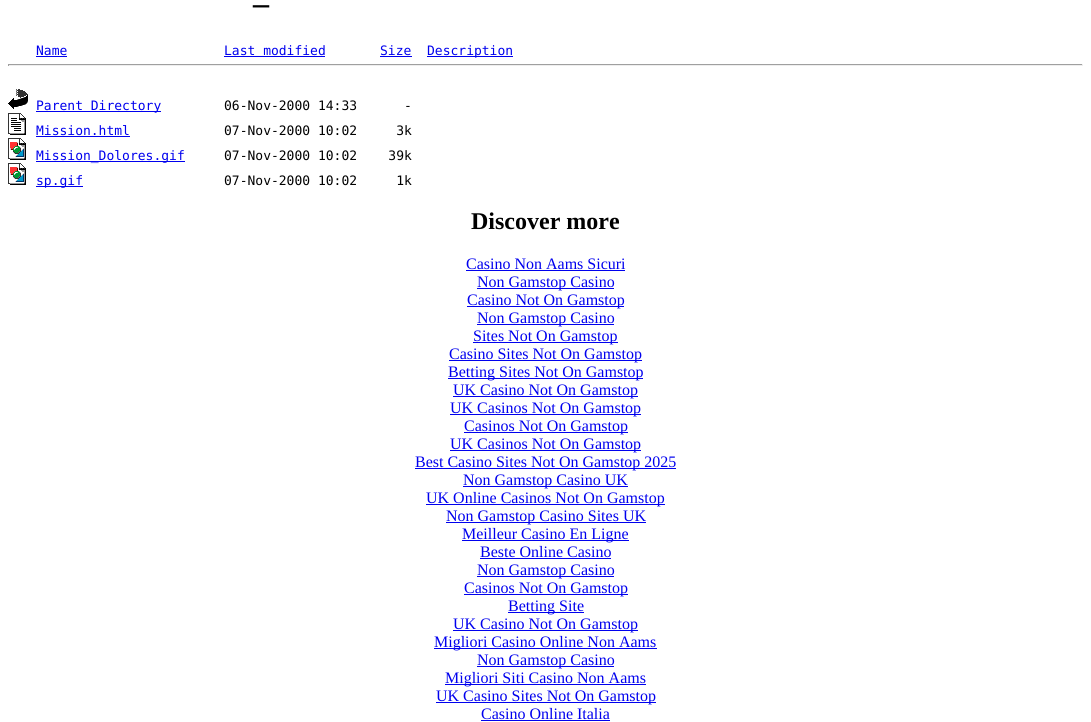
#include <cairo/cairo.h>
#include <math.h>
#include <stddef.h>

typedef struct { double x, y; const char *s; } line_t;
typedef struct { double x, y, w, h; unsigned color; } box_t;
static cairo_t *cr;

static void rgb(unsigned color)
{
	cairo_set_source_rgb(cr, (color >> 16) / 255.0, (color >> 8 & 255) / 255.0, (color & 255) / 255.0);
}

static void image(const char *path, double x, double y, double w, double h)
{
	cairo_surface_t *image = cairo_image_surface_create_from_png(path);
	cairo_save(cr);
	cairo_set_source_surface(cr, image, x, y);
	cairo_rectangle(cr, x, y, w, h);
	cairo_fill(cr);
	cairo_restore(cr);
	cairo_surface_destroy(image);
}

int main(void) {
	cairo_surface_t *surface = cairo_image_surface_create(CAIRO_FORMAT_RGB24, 1091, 722);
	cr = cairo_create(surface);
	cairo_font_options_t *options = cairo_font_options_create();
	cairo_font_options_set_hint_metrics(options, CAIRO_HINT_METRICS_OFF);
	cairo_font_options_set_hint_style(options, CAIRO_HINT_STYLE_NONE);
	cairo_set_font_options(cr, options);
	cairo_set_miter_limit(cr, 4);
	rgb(0xffffff);
	cairo_paint(cr);
	{
		static const box_t items[] = {
			{36, 56, 31, 1, 0x0000ee},
			{224, 56, 101, 1, 0x0000ee},
			{380, 56, 32, 1, 0x0000ee},
			{427, 56, 86, 1, 0x0000ee},
			{8, 64, 1075, 1, 0x9f9f9f},
			{1082, 64, 1, 2, 0xeeeeee},
			{8, 65, 1075, 1, 0xeeeeee},
			{8, 64, 1, 2, 0x9f9f9f},
		};
		for (size_t i = 0; i < sizeof items / sizeof *items; i++) {
			rgb(items[i].color);
			cairo_rectangle(cr, items[i].x, items[i].y, items[i].w, items[i].h);
			cairo_fill(cr);
		}
	}
	image("img/1.png", 8, 89, 20, 20);
	rgb(0x0000ee);
	cairo_rectangle(cr, 36, 111, 125, 1);
	cairo_fill(cr);
	image("img/2.png", 8, 113, 18, 22);
	cairo_rectangle(cr, 36, 136, 94, 1);
	cairo_fill(cr);
	image("img/3.png", 8, 138, 18, 22);
	cairo_rectangle(cr, 36, 161, 149, 1);
	cairo_fill(cr);
	image("img/3.png", 8, 163, 18, 22);
	{
		static const box_t items[] = {
			{36, 186, 47, 1, 0x0000ee},
			{466, 270, 159, 1, 0x0000ee},
			{477, 288, 137, 1, 0x0000ee},
			{467, 306, 157, 1, 0x0000ee},
			{477, 324, 137, 1, 0x0000ee},
			{473, 342, 145, 1, 0x0000ee},
			{449, 360, 193, 1, 0x0000ee},
			{448, 378, 195, 1, 0x0000ee},
			{453, 396, 185, 1, 0x0000ee},
			{450, 414, 191, 1, 0x0000ee},
			{464, 432, 164, 1, 0x0000ee},
			{450, 450, 191, 1, 0x0000ee},
			{415, 468, 261, 1, 0x0000ee},
			{463, 486, 165, 1, 0x0000ee},
			{426, 504, 239, 1, 0x0000ee},
			{446, 522, 200, 1, 0x0000ee},
			{462, 540, 167, 1, 0x0000ee},
			{480, 558, 131, 1, 0x0000ee},
			{477, 576, 137, 1, 0x0000ee},
			{464, 594, 164, 1, 0x0000ee},
			{508, 612, 76, 1, 0x0000ee},
			{453, 630, 185, 1, 0x0000ee},
			{434, 648, 223, 1, 0x0000ee},
			{477, 666, 137, 1, 0x0000ee},
			{445, 684, 201, 1, 0x0000ee},
			{436, 702, 220, 1, 0x0000ee},
			{481, 720, 129, 1, 0x0000ee},
		};
		for (size_t i = 0; i < sizeof items / sizeof *items; i++) {
			rgb(items[i].color);
			cairo_rectangle(cr, items[i].x, items[i].y, items[i].w, items[i].h);
			cairo_fill(cr);
		}
	}
	cairo_select_font_face(cr, "Liberation Serif", CAIRO_FONT_SLANT_NORMAL, CAIRO_FONT_WEIGHT_BOLD);
	cairo_set_font_size(cr, 32);
	rgb(0x000000);
	cairo_move_to(cr, 253, 3);
	cairo_show_text(cr, "_");
	cairo_select_font_face(cr, "DejaVu Sans Mono", CAIRO_FONT_SLANT_NORMAL, CAIRO_FONT_WEIGHT_NORMAL);
	cairo_set_font_size(cr, 13);
	rgb(0x0000ee);
	{
		static const line_t items[] = {
			{36, 55, "Name"},
			{224, 55, "Last modified"},
			{380, 55, "Size"},
			{427, 55, "Description"},
			{36, 110, "Parent Directory"},
		};
		for (size_t i = 0; i < sizeof items / sizeof *items; i++) {
			cairo_move_to(cr, items[i].x, items[i].y);
			cairo_show_text(cr, items[i].s);
		}
	}
	rgb(0x000000);
	cairo_move_to(cr, 224, 110);
	cairo_show_text(cr, "06-Nov-2000 14:33      -");
	rgb(0x0000ee);
	cairo_move_to(cr, 36, 135);
	cairo_show_text(cr, "Mission.html");
	rgb(0x000000);
	cairo_move_to(cr, 224, 135);
	cairo_show_text(cr, "07-Nov-2000 10:02     3k");
	rgb(0x0000ee);
	cairo_move_to(cr, 36, 160);
	cairo_show_text(cr, "Mission_Dolores.gif");
	rgb(0x000000);
	cairo_move_to(cr, 224, 160);
	cairo_show_text(cr, "07-Nov-2000 10:02    39k");
	rgb(0x0000ee);
	cairo_move_to(cr, 36, 185);
	cairo_show_text(cr, "sp.gif");
	rgb(0x000000);
	cairo_move_to(cr, 224, 185);
	cairo_show_text(cr, "07-Nov-2000 10:02     1k");
	cairo_select_font_face(cr, "Liberation Serif", CAIRO_FONT_SLANT_NORMAL, CAIRO_FONT_WEIGHT_BOLD);
	cairo_set_font_size(cr, 24);
	cairo_move_to(cr, 471, 229);
	cairo_show_text(cr, "Discover more");
	cairo_select_font_face(cr, "Liberation Serif", CAIRO_FONT_SLANT_NORMAL, CAIRO_FONT_WEIGHT_NORMAL);
	cairo_set_font_size(cr, 16);
	rgb(0x0000ee);
	{
		static const line_t items[] = {
			{466, 269, "Casino Non Aams Sicuri"},
			{477, 287, "Non Gamstop Casino"},
			{467, 305, "Casino Not On Gamstop"},
			{477, 323, "Non Gamstop Casino"},
			{473, 341, "Sites Not On Gamstop"},
			{449, 359, "Casino Sites Not On Gamstop"},
			{448, 377, "Betting Sites Not On Gamstop"},
			{453, 395, "UK Casino Not On Gamstop"},
			{450, 413, "UK Casinos Not On Gamstop"},
			{464, 431, "Casinos Not On Gamstop"},
			{450, 449, "UK Casinos Not On Gamstop"},
			{415, 467, "Best Casino Sites Not On Gamstop 2025"},
			{463, 485, "Non Gamstop Casino UK"},
			{426, 503, "UK Online Casinos Not On Gamstop"},
			{446, 521, "Non Gamstop Casino Sites UK"},
			{462, 539, "Meilleur Casino En Ligne"},
			{480, 557, "Beste Online Casino"},
			{477, 575, "Non Gamstop Casino"},
			{464, 593, "Casinos Not On Gamstop"},
			{508, 611, "Betting Site"},
			{453, 629, "UK Casino Not On Gamstop"},
			{434, 647, "Migliori Casino Online Non Aams"},
			{477, 665, "Non Gamstop Casino"},
			{445, 683, "Migliori Siti Casino Non Aams"},
			{436, 701, "UK Casino Sites Not On Gamstop"},
			{481, 719, "Casino Online Italia"},
		};
		for (size_t i = 0; i < sizeof items / sizeof *items; i++) {
			cairo_move_to(cr, items[i].x, items[i].y);
			cairo_show_text(cr, items[i].s);
		}
	}
	cairo_surface_write_to_png(surface, "page.png");
	cairo_font_options_destroy(options);
	cairo_destroy(cr);
	cairo_surface_destroy(surface);
	return 0;
}
